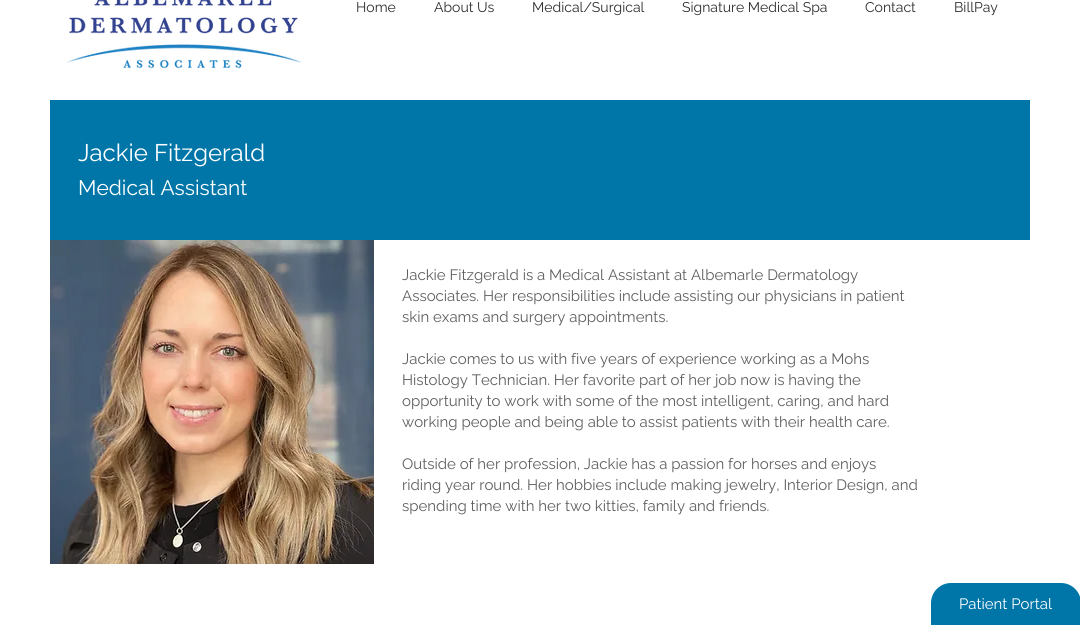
#include <cairo/cairo.h>
#include <math.h>
#include <stddef.h>

typedef struct { double x, y; const char *s; } line_t;
static cairo_t *cr;

static void rgb(unsigned color)
{
	cairo_set_source_rgb(cr, (color >> 16) / 255.0, (color >> 8 & 255) / 255.0, (color & 255) / 255.0);
}

static void image(const char *path, double x, double y, double w, double h)
{
	cairo_surface_t *image = cairo_image_surface_create_from_png(path);
	cairo_save(cr);
	cairo_set_source_surface(cr, image, x, y);
	cairo_rectangle(cr, x, y, w, h);
	cairo_fill(cr);
	cairo_restore(cr);
	cairo_surface_destroy(image);
}

int main(void) {
	cairo_surface_t *surface = cairo_image_surface_create(CAIRO_FORMAT_RGB24, 1080, 625);
	cr = cairo_create(surface);
	cairo_font_options_t *options = cairo_font_options_create();
	cairo_font_options_set_hint_metrics(options, CAIRO_HINT_METRICS_OFF);
	cairo_font_options_set_hint_style(options, CAIRO_HINT_STYLE_NONE);
	cairo_set_font_options(cr, options);
	cairo_set_miter_limit(cr, 4);
	rgb(0xffffff);
	cairo_paint(cr);
	image("img/1.png", 67, 0, 235, 69);
	rgb(0x0076a8);
	cairo_rectangle(cr, 50, 100, 980, 140);
	cairo_fill(cr);
	image("img/2.png", 50, 240, 324, 324);
	cairo_new_path(cr);
	cairo_move_to(cr, 951, 583);
	cairo_line_to(cr, 1061, 583);
	cairo_curve_to(cr, 1072, 583, 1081, 592, 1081, 603);
	cairo_line_to(cr, 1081, 625);
	cairo_line_to(cr, 931, 625);
	cairo_line_to(cr, 931, 603);
	cairo_curve_to(cr, 931, 592, 940, 583, 951, 583);
	cairo_close_path(cr);
	cairo_fill(cr);
	cairo_select_font_face(cr, "Raleway", CAIRO_FONT_SLANT_NORMAL, CAIRO_FONT_WEIGHT_NORMAL);
	cairo_set_font_size(cr, 14);
	rgb(0x2f2e2e);
	{
		static const line_t items[] = {
			{356, 12, "Home"},
			{434, 12, "About Us"},
			{532, 12, "Medical/Surgical"},
			{682, 12, "Signature Medical Spa"},
			{865, 12, "Contact"},
			{954, 12, "BillPay"},
		};
		for (size_t i = 0; i < sizeof items / sizeof *items; i++) {
			cairo_move_to(cr, items[i].x, items[i].y);
			cairo_show_text(cr, items[i].s);
		}
	}
	cairo_set_font_size(cr, 24);
	rgb(0xffffff);
	cairo_move_to(cr, 78, 161);
	cairo_show_text(cr, "Jackie Fitzgerald");
	cairo_set_font_size(cr, 21);
	cairo_move_to(cr, 78, 195);
	cairo_show_text(cr, "Medical Assistant");
	cairo_set_font_size(cr, 15);
	rgb(0x605e5e);
	{
		static const line_t items[] = {
			{402, 280, "Jackie Fitzgerald is a Medical Assistant at Albemarle Dermatology"},
			{402, 301, "Associates. Her responsibilities include assisting our physicians in patient"},
			{402, 322, "skin exams and surgery appointments."},
			{402, 364, "Jackie comes to us with five years of experience working as a Mohs"},
			{402, 385, "Histology Technician. Her favorite part of her job now is having the"},
			{402, 406, "opportunity to work with some of the most intelligent, caring, and hard"},
			{402, 427, "working people and being able to assist patients with their health care."},
			{402, 469, "Outside of her profession, Jackie has a passion for horses and enjoys"},
			{402, 490, "riding year round. Her hobbies include making jewelry, Interior Design, and"},
			{402, 511, "spending time with her two kitties, family and friends."},
		};
		for (size_t i = 0; i < sizeof items / sizeof *items; i++) {
			cairo_move_to(cr, items[i].x, items[i].y);
			cairo_show_text(cr, items[i].s);
		}
	}
	rgb(0xffffff);
	cairo_move_to(cr, 959, 609);
	cairo_show_text(cr, "Patient Portal");
	cairo_surface_write_to_png(surface, "page.png");
	cairo_font_options_destroy(options);
	cairo_destroy(cr);
	cairo_surface_destroy(surface);
	return 0;
}
